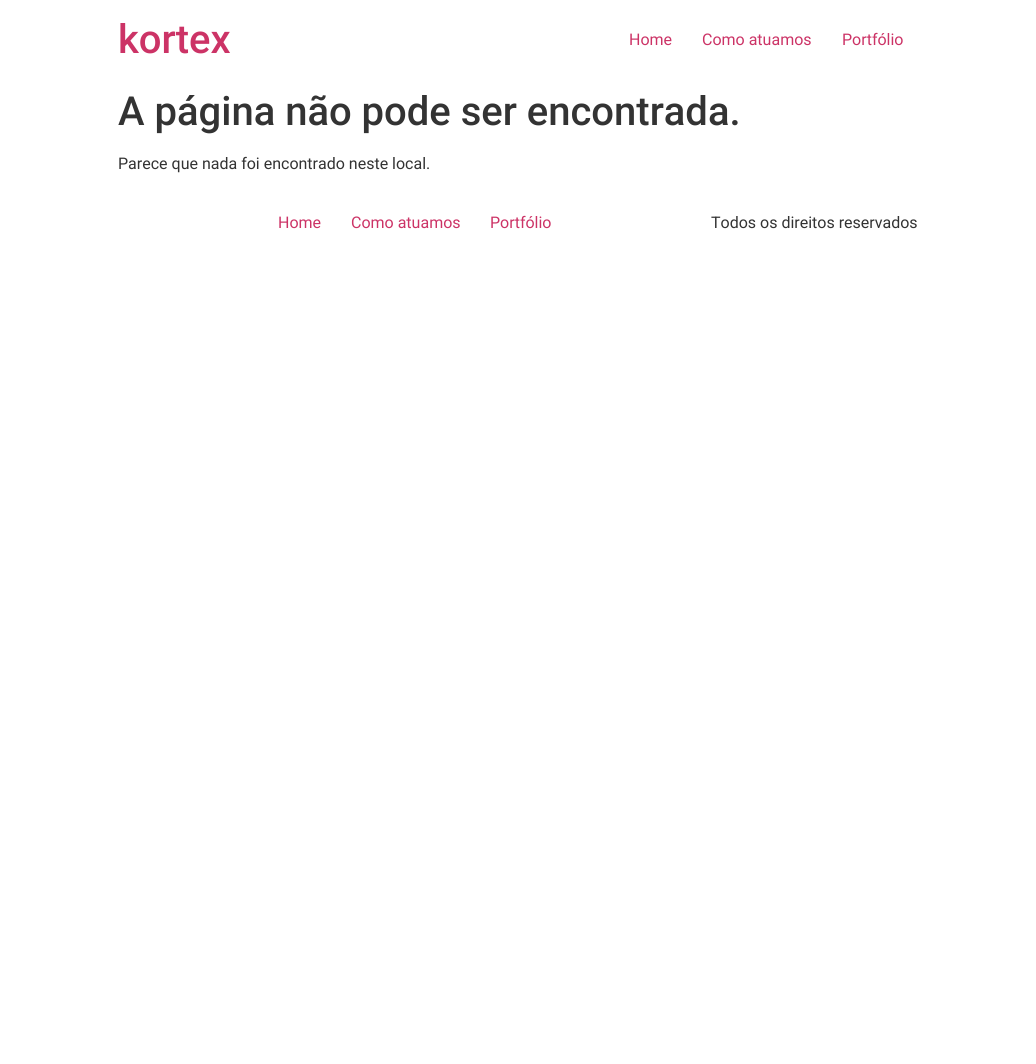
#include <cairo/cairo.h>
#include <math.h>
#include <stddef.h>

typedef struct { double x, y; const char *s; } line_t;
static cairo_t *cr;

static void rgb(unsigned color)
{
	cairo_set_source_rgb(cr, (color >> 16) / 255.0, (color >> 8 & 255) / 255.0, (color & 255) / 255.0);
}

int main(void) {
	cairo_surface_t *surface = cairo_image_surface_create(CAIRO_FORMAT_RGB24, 1036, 1064);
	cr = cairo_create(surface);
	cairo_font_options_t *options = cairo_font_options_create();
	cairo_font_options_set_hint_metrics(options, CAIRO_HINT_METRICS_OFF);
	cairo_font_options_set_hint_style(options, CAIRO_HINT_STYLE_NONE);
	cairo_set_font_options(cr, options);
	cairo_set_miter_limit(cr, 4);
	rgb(0xffffff);
	cairo_paint(cr);
	cairo_select_font_face(cr, "Roboto Medium", CAIRO_FONT_SLANT_NORMAL, CAIRO_FONT_WEIGHT_NORMAL);
	cairo_set_font_size(cr, 40);
	rgb(0xcc3366);
	cairo_move_to(cr, 118, 53);
	cairo_show_text(cr, "kortex");
	cairo_select_font_face(cr, "Roboto", CAIRO_FONT_SLANT_NORMAL, CAIRO_FONT_WEIGHT_NORMAL);
	cairo_set_font_size(cr, 16);
	{
		static const line_t items[] = {
			{629, 45, "Home"},
			{702, 45, "Como atuamos"},
			{842, 45, "Portfólio"},
		};
		for (size_t i = 0; i < sizeof items / sizeof *items; i++) {
			cairo_move_to(cr, items[i].x, items[i].y);
			cairo_show_text(cr, items[i].s);
		}
	}
	cairo_select_font_face(cr, "Roboto Medium", CAIRO_FONT_SLANT_NORMAL, CAIRO_FONT_WEIGHT_NORMAL);
	cairo_set_font_size(cr, 40);
	rgb(0x333333);
	cairo_move_to(cr, 118, 125);
	cairo_show_text(cr, "A página não pode ser encontrada.");
	cairo_select_font_face(cr, "Roboto", CAIRO_FONT_SLANT_NORMAL, CAIRO_FONT_WEIGHT_NORMAL);
	cairo_set_font_size(cr, 16);
	cairo_move_to(cr, 118, 169);
	cairo_show_text(cr, "Parece que nada foi encontrado neste local.");
	rgb(0xcc3366);
	{
		static const line_t items[] = {
			{278, 228, "Home"},
			{351, 228, "Como atuamos"},
			{490, 228, "Portfólio"},
		};
		for (size_t i = 0; i < sizeof items / sizeof *items; i++) {
			cairo_move_to(cr, items[i].x, items[i].y);
			cairo_show_text(cr, items[i].s);
		}
	}
	rgb(0x333333);
	cairo_move_to(cr, 711, 228);
	cairo_show_text(cr, "Todos os direitos reservados");
	cairo_surface_write_to_png(surface, "page.png");
	cairo_font_options_destroy(options);
	cairo_destroy(cr);
	cairo_surface_destroy(surface);
	return 0;
}
